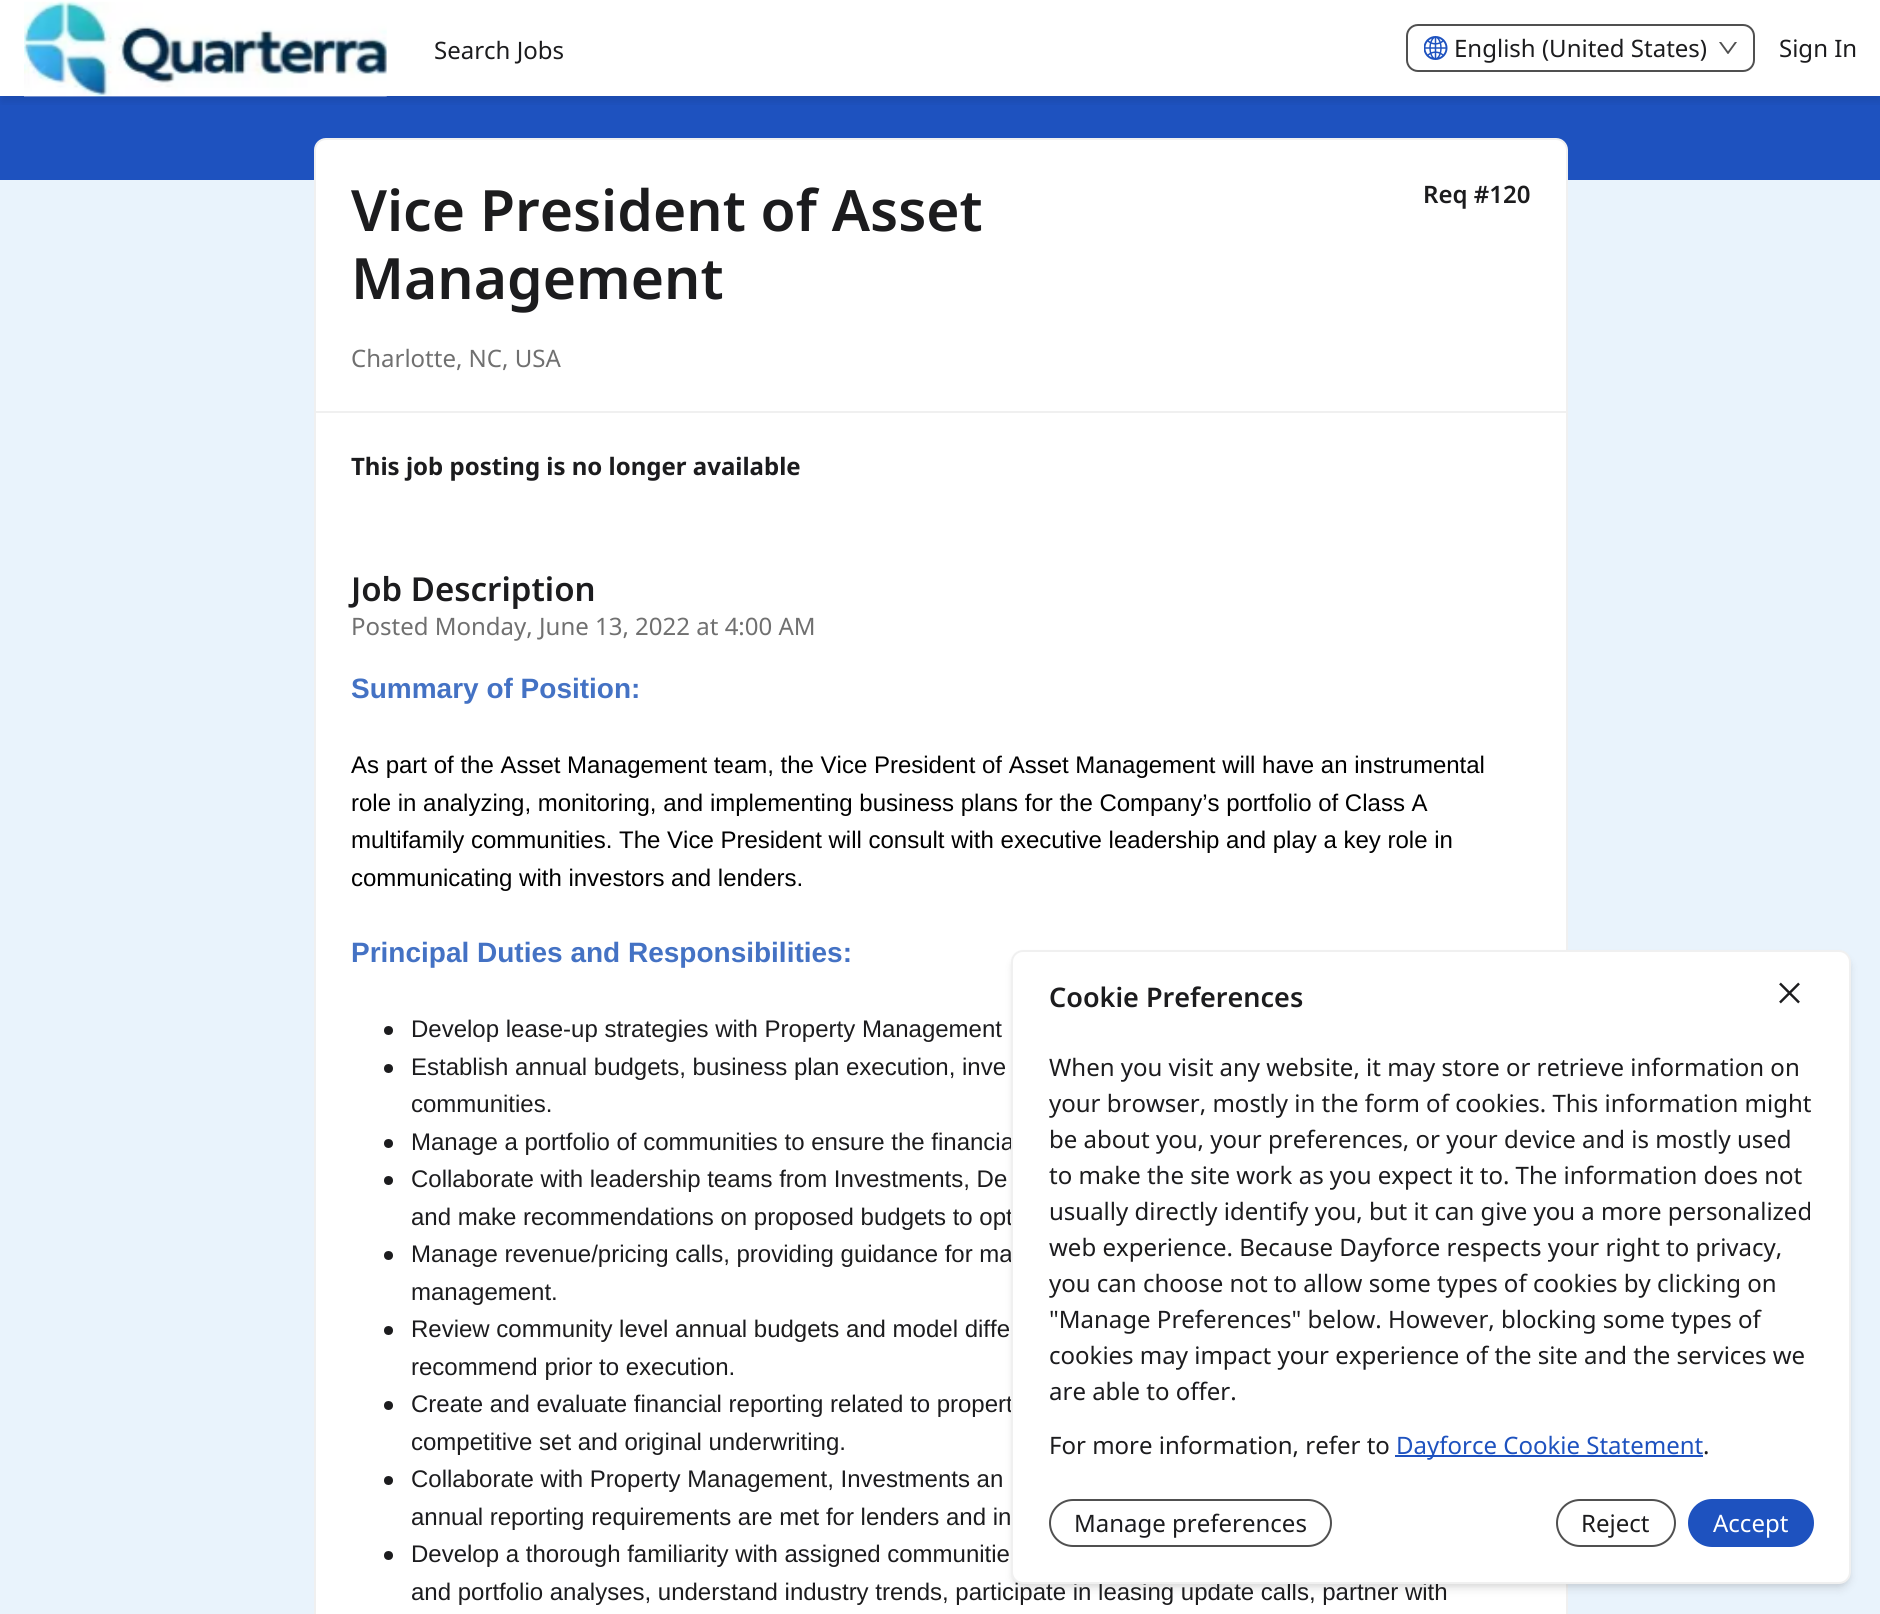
#include <cairo/cairo.h>
#include <math.h>
#include <stddef.h>

typedef struct { double x, y; const char *s; } line_t;
static cairo_t *cr;

static void rgb(unsigned color)
{
	cairo_set_source_rgb(cr, (color >> 16) / 255.0, (color >> 8 & 255) / 255.0, (color & 255) / 255.0);
}

static void rrect(double x, double y, double w, double h, double r)
{
	cairo_new_sub_path(cr);
	cairo_arc(cr, x + w - r, y + h - r, r, 0, M_PI / 2);
	cairo_arc(cr, x + r, y + h - r, r, M_PI / 2, M_PI);
	cairo_arc(cr, x + r, y + r, r, M_PI, 1.5 * M_PI);
	cairo_arc(cr, x + w - r, y + r, r, 1.5 * M_PI, 2 * M_PI);
	cairo_close_path(cr);
}

static void soft_shadow(double x, double y, double w, double h, double r, double blur, double alpha)
{
	cairo_push_group_with_content(cr, CAIRO_CONTENT_ALPHA);
	cairo_set_operator(cr, CAIRO_OPERATOR_SOURCE);
	for (int i = 15; i >= -15 && fmin(w, h) + blur * i / 3 > 0; i -= 2) {
		double e = blur * i / 6;
		cairo_set_source_rgba(cr, 0, 0, 0, alpha * erfc((i - 1) / 8.5) / 2);
		rrect(x - e, y - e, w + 2 * e, h + 2 * e, fmax(0, fmin(r + e + blur * .6, fmin(w, h) / 2 + e)));
		cairo_fill(cr);
	}
	cairo_pattern_t *soft = cairo_pop_group(cr);
	cairo_mask(cr, soft);
	cairo_pattern_destroy(soft);
}

static void image(const char *path, double x, double y, double w, double h)
{
	cairo_surface_t *image = cairo_image_surface_create_from_png(path);
	cairo_save(cr);
	cairo_set_source_surface(cr, image, x, y);
	cairo_rectangle(cr, x, y, w, h);
	cairo_fill(cr);
	cairo_restore(cr);
	cairo_surface_destroy(image);
}

int main(void) {
	cairo_surface_t *surface = cairo_image_surface_create(CAIRO_FORMAT_RGB24, 1880, 1614);
	cr = cairo_create(surface);
	cairo_font_options_t *options = cairo_font_options_create();
	cairo_font_options_set_hint_metrics(options, CAIRO_HINT_METRICS_OFF);
	cairo_font_options_set_hint_style(options, CAIRO_HINT_STYLE_NONE);
	cairo_set_font_options(cr, options);
	cairo_set_miter_limit(cr, 4);
	rgb(0xffffff);
	cairo_paint(cr);
	rgb(0x1e52bf);
	cairo_rectangle(cr, 0, 96, 1880, 84);
	cairo_fill(cr);
	cairo_save(cr);
	cairo_rectangle(cr, 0, 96, 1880, 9);
	cairo_clip(cr);
	rgb(0x000000);
	soft_shadow(2, 8, 1878, 93, 0, 4.5, 0.1);
	cairo_restore(cr);
	image("img/1.png", 24, 0, 363, 97);
	rrect(1407, 25, 347, 46, 11);
	rgb(0x505050);
	cairo_stroke(cr);
	image("img/2.png", 1424, 36, 24, 24);
	image("img/3.png", 1719, 42, 18, 12);
	rgb(0xe9f3fc);
	cairo_rectangle(cr, 0, 180, 1880, 1434);
	cairo_fill(cr);
	rgb(0xffffff);
	rrect(315, 139, 1252, 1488, 11);
	cairo_fill_preserve(cr);
	rgb(0xf0f0f0);
	cairo_stroke(cr);
	cairo_rectangle(cr, 315, 411, 1251, 2);
	cairo_fill(cr);
	rgb(0x1c1c1e);
	cairo_arc(cr, 388.5, 1030.5, 4.5, 0, 2 * M_PI);
	cairo_fill(cr);
	cairo_arc(cr, 388.5, 1068.5, 4.5, 0, 2 * M_PI);
	cairo_fill(cr);
	cairo_arc(cr, 388.5, 1143.5, 4.5, 0, 2 * M_PI);
	cairo_fill(cr);
	cairo_arc(cr, 388.5, 1180.5, 4.5, 0, 2 * M_PI);
	cairo_fill(cr);
	cairo_arc(cr, 388.5, 1255.5, 4.5, 0, 2 * M_PI);
	cairo_fill(cr);
	cairo_arc(cr, 388.5, 1330.5, 4.5, 0, 2 * M_PI);
	cairo_fill(cr);
	cairo_arc(cr, 388.5, 1405.5, 4.5, 0, 2 * M_PI);
	cairo_fill(cr);
	cairo_arc(cr, 388.5, 1480.5, 4.5, 0, 2 * M_PI);
	cairo_fill(cr);
	cairo_arc(cr, 388.5, 1555.5, 4.5, 0, 2 * M_PI);
	cairo_fill(cr);
	rgb(0x000000);
	soft_shadow(1014, 956, 834, 628, 9, 3, 0.1);
	soft_shadow(1013, 957, 837, 632, 11, 4.5, 0.1);
	cairo_select_font_face(cr, "Noto Sans", CAIRO_FONT_SLANT_NORMAL, CAIRO_FONT_WEIGHT_NORMAL);
	cairo_set_font_size(cr, 24);
	rgb(0x1c1c1e);
	{
		static const line_t items[] = {
			{434, 59, "Search Jobs"},
			{1454, 57, "English (United States)"},
			{1779, 57, "Sign In"},
		};
		for (size_t i = 0; i < sizeof items / sizeof *items; i++) {
			cairo_move_to(cr, items[i].x, items[i].y);
			cairo_show_text(cr, items[i].s);
		}
	}
	cairo_select_font_face(cr, "Noto Sans SemiBold", CAIRO_FONT_SLANT_NORMAL, CAIRO_FONT_WEIGHT_NORMAL);
	cairo_set_font_size(cr, 57);
	cairo_move_to(cr, 351, 231);
	cairo_show_text(cr, "Vice President of Asset");
	cairo_move_to(cr, 351, 299);
	cairo_show_text(cr, "Management");
	cairo_set_font_size(cr, 24);
	cairo_move_to(cr, 1423, 203);
	cairo_show_text(cr, "Req #120");
	cairo_select_font_face(cr, "Noto Sans", CAIRO_FONT_SLANT_NORMAL, CAIRO_FONT_WEIGHT_NORMAL);
	rgb(0x707070);
	cairo_move_to(cr, 351, 367);
	cairo_show_text(cr, "Charlotte, NC, USA");
	cairo_select_font_face(cr, "Noto Sans", CAIRO_FONT_SLANT_NORMAL, CAIRO_FONT_WEIGHT_BOLD);
	rgb(0x1c1c1e);
	cairo_move_to(cr, 351, 475);
	cairo_show_text(cr, "This job posting is no longer available");
	cairo_select_font_face(cr, "Noto Sans SemiBold", CAIRO_FONT_SLANT_NORMAL, CAIRO_FONT_WEIGHT_NORMAL);
	cairo_set_font_size(cr, 33);
	cairo_move_to(cr, 351, 601);
	cairo_show_text(cr, "Job Description");
	cairo_select_font_face(cr, "Noto Sans", CAIRO_FONT_SLANT_NORMAL, CAIRO_FONT_WEIGHT_NORMAL);
	cairo_set_font_size(cr, 24);
	rgb(0x707070);
	cairo_move_to(cr, 351, 635);
	cairo_show_text(cr, "Posted Monday, June 13, 2022 at 4:00 AM");
	cairo_select_font_face(cr, "Liberation Sans", CAIRO_FONT_SLANT_NORMAL, CAIRO_FONT_WEIGHT_BOLD);
	cairo_set_font_size(cr, 28);
	rgb(0x4472c4);
	cairo_move_to(cr, 351, 698);
	cairo_show_text(cr, "Summary of Position:");
	cairo_select_font_face(cr, "Liberation Sans", CAIRO_FONT_SLANT_NORMAL, CAIRO_FONT_WEIGHT_NORMAL);
	cairo_set_font_size(cr, 24);
	rgb(0x000000);
	{
		static const line_t items[] = {
			{351, 773, "As part of the Asset Management team, the Vice President of Asset Management will have an instrumental"},
			{351, 811, "role in analyzing, monitoring, and implementing business plans for the Company’s portfolio of Class A"},
			{351, 848, "multifamily communities. The Vice President will consult with executive leadership and play a key role in"},
			{351, 886, "communicating with investors and lenders."},
		};
		for (size_t i = 0; i < sizeof items / sizeof *items; i++) {
			cairo_move_to(cr, items[i].x, items[i].y);
			cairo_show_text(cr, items[i].s);
		}
	}
	cairo_select_font_face(cr, "Liberation Sans", CAIRO_FONT_SLANT_NORMAL, CAIRO_FONT_WEIGHT_BOLD);
	cairo_set_font_size(cr, 28);
	rgb(0x4472c4);
	cairo_move_to(cr, 351, 962);
	cairo_show_text(cr, "Principal Duties and Responsibilities:");
	cairo_select_font_face(cr, "Liberation Sans", CAIRO_FONT_SLANT_NORMAL, CAIRO_FONT_WEIGHT_NORMAL);
	cairo_set_font_size(cr, 24);
	rgb(0x1c1c1e);
	{
		static const line_t items[] = {
			{411, 1037, "Develop lease-up strategies with Property Management"},
			{411, 1075, "Establish annual budgets, business plan execution, inve"},
			{411, 1112, "communities."},
			{411, 1150, "Manage a portfolio of communities to ensure the financia"},
			{411, 1187, "Collaborate with leadership teams from Investments, De"},
			{411, 1225, "and make recommendations on proposed budgets to opt"},
			{411, 1262, "Manage revenue/pricing calls, providing guidance for ma"},
			{411, 1300, "management."},
			{411, 1337, "Review community level annual budgets and model diffe"},
			{411, 1375, "recommend prior to execution."},
			{411, 1412, "Create and evaluate financial reporting related to propert"},
			{411, 1450, "competitive set and original underwriting."},
			{411, 1487, "Collaborate with Property Management, Investments an"},
			{411, 1525, "annual reporting requirements are met for lenders and in"},
			{411, 1562, "Develop a thorough familiarity with assigned communitie"},
			{411, 1600, "and portfolio analyses, understand industry trends, participate in leasing update calls, partner with"},
		};
		for (size_t i = 0; i < sizeof items / sizeof *items; i++) {
			cairo_move_to(cr, items[i].x, items[i].y);
			cairo_show_text(cr, items[i].s);
		}
	}
	rgb(0xffffff);
	rrect(1012, 951, 838, 632, 11);
	cairo_fill_preserve(cr);
	rgb(0xf0f0f0);
	cairo_stroke(cr);
	cairo_select_font_face(cr, "Noto Sans SemiBold", CAIRO_FONT_SLANT_NORMAL, CAIRO_FONT_WEIGHT_NORMAL);
	cairo_set_font_size(cr, 27);
	rgb(0x1c1c1e);
	cairo_move_to(cr, 1049, 1007);
	cairo_show_text(cr, "Cookie Preferences");
	image("img/4.png", 1779, 982, 21, 22);
	cairo_select_font_face(cr, "Noto Sans", CAIRO_FONT_SLANT_NORMAL, CAIRO_FONT_WEIGHT_NORMAL);
	cairo_set_font_size(cr, 24);
	{
		static const line_t items[] = {
			{1049, 1076, "When you visit any website, it may store or retrieve information on"},
			{1049, 1112, "your browser, mostly in the form of cookies. This information might"},
			{1049, 1148, "be about you, your preferences, or your device and is mostly used"},
			{1049, 1184, "to make the site work as you expect it to. The information does not"},
			{1049, 1220, "usually directly identify you, but it can give you a more personalized"},
			{1049, 1256, "web experience. Because Dayforce respects your right to privacy,"},
			{1049, 1292, "you can choose not to allow some types of cookies by clicking on"},
			{1049, 1328, "\"Manage Preferences\" below. However, blocking some types of"},
			{1049, 1364, "cookies may impact your experience of the site and the services we"},
			{1049, 1400, "are able to offer."},
			{1049, 1454, "For more information, refer to"},
		};
		for (size_t i = 0; i < sizeof items / sizeof *items; i++) {
			cairo_move_to(cr, items[i].x, items[i].y);
			cairo_show_text(cr, items[i].s);
		}
	}
	rgb(0x1e52bf);
	cairo_rectangle(cr, 1395, 1455, 308, 2);
	cairo_fill(cr);
	cairo_move_to(cr, 1396, 1454);
	cairo_show_text(cr, "Dayforce Cookie Statement");
	rgb(0x1c1c1e);
	cairo_move_to(cr, 1703, 1454);
	cairo_show_text(cr, ".");
	rrect(1050, 1500, 281, 46, 23);
	rgb(0x505050);
	cairo_stroke(cr);
	rgb(0x1c1c1e);
	cairo_move_to(cr, 1074, 1532);
	cairo_show_text(cr, "Manage preferences");
	rrect(1557, 1500, 118, 46, 23);
	rgb(0x505050);
	cairo_stroke(cr);
	rgb(0x1c1c1e);
	cairo_move_to(cr, 1581, 1532);
	cairo_show_text(cr, "Reject");
	rgb(0x1e52bf);
	rrect(1688, 1499, 126, 48, 24);
	cairo_fill(cr);
	rgb(0xffffff);
	cairo_move_to(cr, 1713, 1532);
	cairo_show_text(cr, "Accept");
	cairo_surface_write_to_png(surface, "page.png");
	cairo_font_options_destroy(options);
	cairo_destroy(cr);
	cairo_surface_destroy(surface);
	return 0;
}
